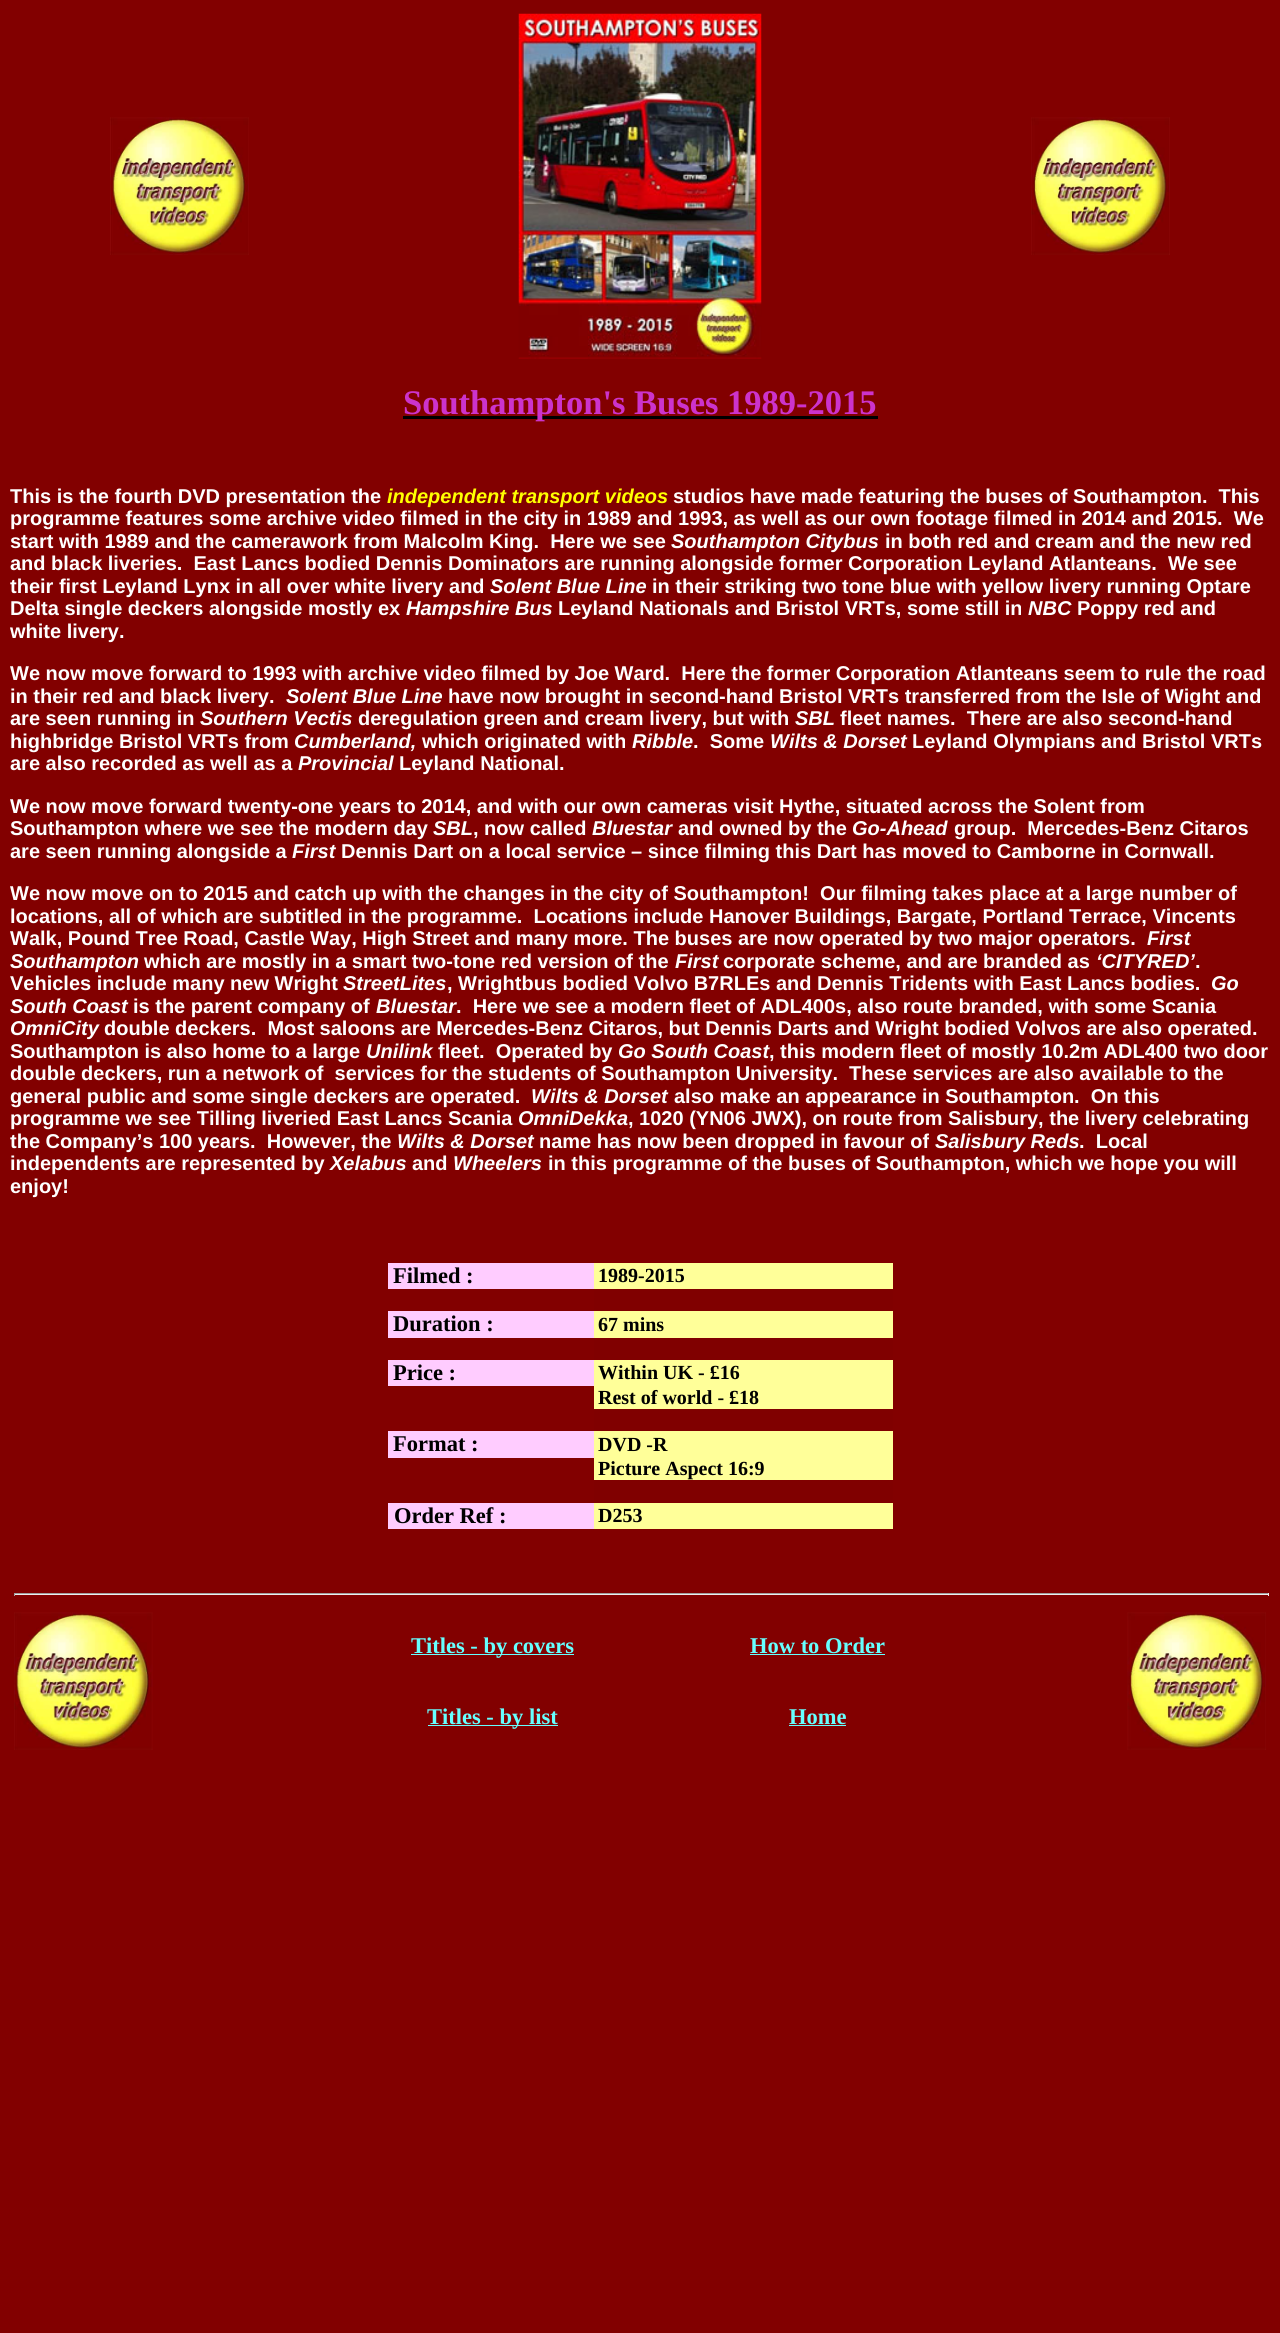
#include <cairo/cairo.h>
#include <math.h>
#include <stddef.h>

typedef struct { double x, y; const char *s; } line_t;
typedef struct { double x, y, w, h; unsigned color; } box_t;
static cairo_t *cr;

static void rgb(unsigned color)
{
	cairo_set_source_rgb(cr, (color >> 16) / 255.0, (color >> 8 & 255) / 255.0, (color & 255) / 255.0);
}

static void image(const char *path, double x, double y, double w, double h)
{
	cairo_surface_t *image = cairo_image_surface_create_from_png(path);
	cairo_save(cr);
	cairo_set_source_surface(cr, image, x, y);
	cairo_rectangle(cr, x, y, w, h);
	cairo_fill(cr);
	cairo_restore(cr);
	cairo_surface_destroy(image);
}

int main(void) {
	cairo_surface_t *surface = cairo_image_surface_create(CAIRO_FORMAT_RGB24, 1280, 2333);
	cr = cairo_create(surface);
	cairo_font_options_t *options = cairo_font_options_create();
	cairo_font_options_set_hint_metrics(options, CAIRO_HINT_METRICS_OFF);
	cairo_font_options_set_hint_style(options, CAIRO_HINT_STYLE_NONE);
	cairo_set_font_options(cr, options);
	cairo_set_miter_limit(cr, 4);
	rgb(0x820000);
	cairo_paint(cr);
	image("img/1.png", 110, 117, 139, 138);
	image("img/2.png", 518, 13, 244, 346);
	image("img/3.png", 1031, 117, 139, 138);
	{
		static const box_t items[] = {
			{403, 416, 475, 3, 0x000000},
			{594, 1263, 299, 266, 0xffff99},
			{388, 1263, 206, 26, 0xffccff},
			{594, 1289, 299, 22, 0x800000},
			{388, 1311, 206, 27, 0xffccff},
			{594, 1338, 299, 22, 0x800000},
			{388, 1360, 206, 26, 0xffccff},
			{594, 1409, 299, 22, 0x800000},
			{388, 1431, 206, 27, 0xffccff},
			{594, 1480, 299, 23, 0x800000},
			{388, 1503, 206, 26, 0xffccff},
			{14, 1593, 1255, 1, 0x9f9f9f},
			{1268, 1593, 1, 3, 0xeeeeee},
			{14, 1594, 1255, 1, 0xeeeeee},
			{14, 1593, 1, 3, 0x9f9f9f},
		};
		for (size_t i = 0; i < sizeof items / sizeof *items; i++) {
			rgb(items[i].color);
			cairo_rectangle(cr, items[i].x, items[i].y, items[i].w, items[i].h);
			cairo_fill(cr);
		}
	}
	image("img/4.png", 14, 1612, 139, 138);
	rgb(0x66ffff);
	cairo_rectangle(cr, 411, 1654, 163, 1);
	cairo_fill(cr);
	cairo_rectangle(cr, 750, 1654, 135, 1);
	cairo_fill(cr);
	image("img/5.png", 1127, 1612, 139, 138);
	cairo_rectangle(cr, 428, 1725, 130, 1);
	cairo_fill(cr);
	cairo_rectangle(cr, 789, 1725, 57, 1);
	cairo_fill(cr);
	cairo_select_font_face(cr, "Liberation Serif", CAIRO_FONT_SLANT_NORMAL, CAIRO_FONT_WEIGHT_BOLD);
	cairo_set_font_size(cr, 34.5);
	rgb(0xcc33cc);
	cairo_move_to(cr, 403, 414);
	cairo_show_text(cr, "Southampton's Buses 1989-2015");
	cairo_select_font_face(cr, "Liberation Sans", CAIRO_FONT_SLANT_NORMAL, CAIRO_FONT_WEIGHT_BOLD);
	cairo_set_font_size(cr, 20);
	rgb(0xffffff);
	cairo_move_to(cr, 10, 503);
	cairo_show_text(cr, "This is the fourth DVD presentation the");
	cairo_select_font_face(cr, "Liberation Sans", CAIRO_FONT_SLANT_ITALIC, CAIRO_FONT_WEIGHT_BOLD);
	rgb(0xffff00);
	cairo_move_to(cr, 387, 503);
	cairo_show_text(cr, "independent transport videos");
	cairo_select_font_face(cr, "Liberation Sans", CAIRO_FONT_SLANT_NORMAL, CAIRO_FONT_WEIGHT_BOLD);
	rgb(0xffffff);
	{
		static const line_t items[] = {
			{673, 503, "studios have made featuring the buses of Southampton.  This"},
			{10, 525, "programme features some archive video filmed in the city in 1989 and 1993, as well as our own footage filmed in 2014 and 2015.  We"},
			{10, 548, "start with 1989 and the camerawork from Malcolm King.  Here we see"},
		};
		for (size_t i = 0; i < sizeof items / sizeof *items; i++) {
			cairo_move_to(cr, items[i].x, items[i].y);
			cairo_show_text(cr, items[i].s);
		}
	}
	cairo_select_font_face(cr, "Liberation Sans", CAIRO_FONT_SLANT_ITALIC, CAIRO_FONT_WEIGHT_BOLD);
	cairo_move_to(cr, 671, 548);
	cairo_show_text(cr, "Southampton Citybus");
	cairo_select_font_face(cr, "Liberation Sans", CAIRO_FONT_SLANT_NORMAL, CAIRO_FONT_WEIGHT_BOLD);
	{
		static const line_t items[] = {
			{885, 548, "in both red and cream and the new red"},
			{10, 570, "and black liveries.  East Lancs bodied Dennis Dominators are running alongside former Corporation Leyland Atlanteans.  We see"},
			{10, 593, "their first Leyland Lynx in all over white livery and"},
		};
		for (size_t i = 0; i < sizeof items / sizeof *items; i++) {
			cairo_move_to(cr, items[i].x, items[i].y);
			cairo_show_text(cr, items[i].s);
		}
	}
	cairo_select_font_face(cr, "Liberation Sans", CAIRO_FONT_SLANT_ITALIC, CAIRO_FONT_WEIGHT_BOLD);
	cairo_move_to(cr, 490, 593);
	cairo_show_text(cr, "Solent Blue Line");
	cairo_select_font_face(cr, "Liberation Sans", CAIRO_FONT_SLANT_NORMAL, CAIRO_FONT_WEIGHT_BOLD);
	cairo_move_to(cr, 652, 593);
	cairo_show_text(cr, "in their striking two tone blue with yellow livery running Optare");
	cairo_move_to(cr, 10, 615);
	cairo_show_text(cr, "Delta single deckers alongside mostly ex");
	cairo_select_font_face(cr, "Liberation Sans", CAIRO_FONT_SLANT_ITALIC, CAIRO_FONT_WEIGHT_BOLD);
	cairo_move_to(cr, 406, 615);
	cairo_show_text(cr, "Hampshire Bus");
	cairo_select_font_face(cr, "Liberation Sans", CAIRO_FONT_SLANT_NORMAL, CAIRO_FONT_WEIGHT_BOLD);
	cairo_move_to(cr, 558, 615);
	cairo_show_text(cr, "Leyland Nationals and Bristol VRTs, some still in");
	cairo_select_font_face(cr, "Liberation Sans", CAIRO_FONT_SLANT_ITALIC, CAIRO_FONT_WEIGHT_BOLD);
	cairo_move_to(cr, 1028, 615);
	cairo_show_text(cr, "NBC");
	cairo_select_font_face(cr, "Liberation Sans", CAIRO_FONT_SLANT_NORMAL, CAIRO_FONT_WEIGHT_BOLD);
	{
		static const line_t items[] = {
			{1077, 615, "Poppy red and"},
			{10, 638, "white livery."},
			{10, 680, "We now move forward to 1993 with archive video filmed by Joe Ward.  Here the former Corporation Atlanteans seem to rule the road"},
			{10, 703, "in their red and black livery."},
		};
		for (size_t i = 0; i < sizeof items / sizeof *items; i++) {
			cairo_move_to(cr, items[i].x, items[i].y);
			cairo_show_text(cr, items[i].s);
		}
	}
	cairo_select_font_face(cr, "Liberation Sans", CAIRO_FONT_SLANT_ITALIC, CAIRO_FONT_WEIGHT_BOLD);
	cairo_move_to(cr, 286, 703);
	cairo_show_text(cr, "Solent Blue Line");
	cairo_select_font_face(cr, "Liberation Sans", CAIRO_FONT_SLANT_NORMAL, CAIRO_FONT_WEIGHT_BOLD);
	cairo_move_to(cr, 448, 703);
	cairo_show_text(cr, "have now brought in second-hand Bristol VRTs transferred from the Isle of Wight and");
	cairo_move_to(cr, 10, 725);
	cairo_show_text(cr, "are seen running in");
	cairo_select_font_face(cr, "Liberation Sans", CAIRO_FONT_SLANT_ITALIC, CAIRO_FONT_WEIGHT_BOLD);
	cairo_move_to(cr, 200, 725);
	cairo_show_text(cr, "Southern Vectis");
	cairo_select_font_face(cr, "Liberation Sans", CAIRO_FONT_SLANT_NORMAL, CAIRO_FONT_WEIGHT_BOLD);
	cairo_move_to(cr, 358, 725);
	cairo_show_text(cr, "deregulation green and cream livery, but with");
	cairo_select_font_face(cr, "Liberation Sans", CAIRO_FONT_SLANT_ITALIC, CAIRO_FONT_WEIGHT_BOLD);
	cairo_move_to(cr, 795, 725);
	cairo_show_text(cr, "SBL");
	cairo_select_font_face(cr, "Liberation Sans", CAIRO_FONT_SLANT_NORMAL, CAIRO_FONT_WEIGHT_BOLD);
	cairo_move_to(cr, 840, 725);
	cairo_show_text(cr, "fleet names.  There are also second-hand");
	cairo_move_to(cr, 10, 748);
	cairo_show_text(cr, "highbridge Bristol VRTs from");
	cairo_select_font_face(cr, "Liberation Sans", CAIRO_FONT_SLANT_ITALIC, CAIRO_FONT_WEIGHT_BOLD);
	cairo_move_to(cr, 294, 748);
	cairo_show_text(cr, "Cumberland,");
	cairo_select_font_face(cr, "Liberation Sans", CAIRO_FONT_SLANT_NORMAL, CAIRO_FONT_WEIGHT_BOLD);
	cairo_move_to(cr, 422, 748);
	cairo_show_text(cr, "which originated with");
	cairo_select_font_face(cr, "Liberation Sans", CAIRO_FONT_SLANT_ITALIC, CAIRO_FONT_WEIGHT_BOLD);
	cairo_move_to(cr, 632, 748);
	cairo_show_text(cr, "Ribble");
	cairo_select_font_face(cr, "Liberation Sans", CAIRO_FONT_SLANT_NORMAL, CAIRO_FONT_WEIGHT_BOLD);
	cairo_move_to(cr, 693, 748);
	cairo_show_text(cr, ".  Some");
	cairo_select_font_face(cr, "Liberation Sans", CAIRO_FONT_SLANT_ITALIC, CAIRO_FONT_WEIGHT_BOLD);
	cairo_move_to(cr, 770, 748);
	cairo_show_text(cr, "Wilts & Dorset");
	cairo_select_font_face(cr, "Liberation Sans", CAIRO_FONT_SLANT_NORMAL, CAIRO_FONT_WEIGHT_BOLD);
	cairo_move_to(cr, 912, 748);
	cairo_show_text(cr, "Leyland Olympians and Bristol VRTs");
	cairo_move_to(cr, 10, 770);
	cairo_show_text(cr, "are also recorded as well as a");
	cairo_select_font_face(cr, "Liberation Sans", CAIRO_FONT_SLANT_ITALIC, CAIRO_FONT_WEIGHT_BOLD);
	cairo_move_to(cr, 298, 770);
	cairo_show_text(cr, "Provincial");
	cairo_select_font_face(cr, "Liberation Sans", CAIRO_FONT_SLANT_NORMAL, CAIRO_FONT_WEIGHT_BOLD);
	{
		static const line_t items[] = {
			{399, 770, "Leyland National."},
			{10, 813, "We now move forward twenty-one years to 2014, and with our own cameras visit Hythe, situated across the Solent from"},
			{10, 835, "Southampton where we see the modern day"},
		};
		for (size_t i = 0; i < sizeof items / sizeof *items; i++) {
			cairo_move_to(cr, items[i].x, items[i].y);
			cairo_show_text(cr, items[i].s);
		}
	}
	cairo_select_font_face(cr, "Liberation Sans", CAIRO_FONT_SLANT_ITALIC, CAIRO_FONT_WEIGHT_BOLD);
	cairo_move_to(cr, 433, 835);
	cairo_show_text(cr, "SBL");
	cairo_select_font_face(cr, "Liberation Sans", CAIRO_FONT_SLANT_NORMAL, CAIRO_FONT_WEIGHT_BOLD);
	cairo_move_to(cr, 473, 835);
	cairo_show_text(cr, ", now called");
	cairo_select_font_face(cr, "Liberation Sans", CAIRO_FONT_SLANT_ITALIC, CAIRO_FONT_WEIGHT_BOLD);
	cairo_move_to(cr, 592, 835);
	cairo_show_text(cr, "Bluestar");
	cairo_select_font_face(cr, "Liberation Sans", CAIRO_FONT_SLANT_NORMAL, CAIRO_FONT_WEIGHT_BOLD);
	cairo_move_to(cr, 678, 835);
	cairo_show_text(cr, "and owned by the");
	cairo_select_font_face(cr, "Liberation Sans", CAIRO_FONT_SLANT_ITALIC, CAIRO_FONT_WEIGHT_BOLD);
	cairo_move_to(cr, 852, 835);
	cairo_show_text(cr, "Go-Ahead");
	cairo_select_font_face(cr, "Liberation Sans", CAIRO_FONT_SLANT_NORMAL, CAIRO_FONT_WEIGHT_BOLD);
	cairo_move_to(cr, 954, 835);
	cairo_show_text(cr, "group.  Mercedes-Benz Citaros");
	cairo_move_to(cr, 10, 858);
	cairo_show_text(cr, "are seen running alongside a");
	cairo_select_font_face(cr, "Liberation Sans", CAIRO_FONT_SLANT_ITALIC, CAIRO_FONT_WEIGHT_BOLD);
	cairo_move_to(cr, 292, 858);
	cairo_show_text(cr, "First");
	cairo_select_font_face(cr, "Liberation Sans", CAIRO_FONT_SLANT_NORMAL, CAIRO_FONT_WEIGHT_BOLD);
	{
		static const line_t items[] = {
			{341, 858, "Dennis Dart on a local service – since filming this Dart has moved to Camborne in Cornwall."},
			{10, 900, "We now move on to 2015 and catch up with the changes in the city of Southampton!  Our filming takes place at a large number of"},
			{10, 923, "locations, all of which are subtitled in the programme.  Locations include Hanover Buildings, Bargate, Portland Terrace, Vincents"},
			{10, 945, "Walk, Pound Tree Road, Castle Way, High Street and many more. The buses are now operated by two major operators."},
		};
		for (size_t i = 0; i < sizeof items / sizeof *items; i++) {
			cairo_move_to(cr, items[i].x, items[i].y);
			cairo_show_text(cr, items[i].s);
		}
	}
	cairo_select_font_face(cr, "Liberation Sans", CAIRO_FONT_SLANT_ITALIC, CAIRO_FONT_WEIGHT_BOLD);
	cairo_move_to(cr, 1147, 945);
	cairo_show_text(cr, "First");
	cairo_move_to(cr, 10, 968);
	cairo_show_text(cr, "Southampton");
	cairo_select_font_face(cr, "Liberation Sans", CAIRO_FONT_SLANT_NORMAL, CAIRO_FONT_WEIGHT_BOLD);
	cairo_move_to(cr, 144, 968);
	cairo_show_text(cr, "which are mostly in a smart two-tone red version of the");
	cairo_select_font_face(cr, "Liberation Sans", CAIRO_FONT_SLANT_ITALIC, CAIRO_FONT_WEIGHT_BOLD);
	cairo_move_to(cr, 675, 968);
	cairo_show_text(cr, "First");
	cairo_select_font_face(cr, "Liberation Sans", CAIRO_FONT_SLANT_NORMAL, CAIRO_FONT_WEIGHT_BOLD);
	cairo_move_to(cr, 723, 968);
	cairo_show_text(cr, "corporate scheme, and are branded as");
	cairo_select_font_face(cr, "Liberation Sans", CAIRO_FONT_SLANT_ITALIC, CAIRO_FONT_WEIGHT_BOLD);
	cairo_move_to(cr, 1096, 968);
	cairo_show_text(cr, "‘CITYRED’");
	cairo_select_font_face(cr, "Liberation Sans", CAIRO_FONT_SLANT_NORMAL, CAIRO_FONT_WEIGHT_BOLD);
	cairo_move_to(cr, 1195, 968);
	cairo_show_text(cr, ".");
	cairo_move_to(cr, 10, 990);
	cairo_show_text(cr, "Vehicles include many new Wright");
	cairo_select_font_face(cr, "Liberation Sans", CAIRO_FONT_SLANT_ITALIC, CAIRO_FONT_WEIGHT_BOLD);
	cairo_move_to(cr, 343, 990);
	cairo_show_text(cr, "StreetLites");
	cairo_select_font_face(cr, "Liberation Sans", CAIRO_FONT_SLANT_NORMAL, CAIRO_FONT_WEIGHT_BOLD);
	cairo_move_to(cr, 447, 990);
	cairo_show_text(cr, ", Wrightbus bodied Volvo B7RLEs and Dennis Tridents with East Lancs bodies.");
	cairo_select_font_face(cr, "Liberation Sans", CAIRO_FONT_SLANT_ITALIC, CAIRO_FONT_WEIGHT_BOLD);
	cairo_move_to(cr, 1211, 990);
	cairo_show_text(cr, "Go");
	cairo_move_to(cr, 10, 1013);
	cairo_show_text(cr, "South Coast");
	cairo_select_font_face(cr, "Liberation Sans", CAIRO_FONT_SLANT_NORMAL, CAIRO_FONT_WEIGHT_BOLD);
	cairo_move_to(cr, 133, 1013);
	cairo_show_text(cr, "is the parent company of");
	cairo_select_font_face(cr, "Liberation Sans", CAIRO_FONT_SLANT_ITALIC, CAIRO_FONT_WEIGHT_BOLD);
	cairo_move_to(cr, 376, 1013);
	cairo_show_text(cr, "Bluestar");
	cairo_select_font_face(cr, "Liberation Sans", CAIRO_FONT_SLANT_NORMAL, CAIRO_FONT_WEIGHT_BOLD);
	cairo_move_to(cr, 456, 1013);
	cairo_show_text(cr, ".  Here we see a modern fleet of ADL400s, also route branded, with some Scania");
	cairo_select_font_face(cr, "Liberation Sans", CAIRO_FONT_SLANT_ITALIC, CAIRO_FONT_WEIGHT_BOLD);
	cairo_move_to(cr, 10, 1035);
	cairo_show_text(cr, "OmniCity");
	cairo_select_font_face(cr, "Liberation Sans", CAIRO_FONT_SLANT_NORMAL, CAIRO_FONT_WEIGHT_BOLD);
	cairo_move_to(cr, 104, 1035);
	cairo_show_text(cr, "double deckers.  Most saloons are Mercedes-Benz Citaros, but Dennis Darts and Wright bodied Volvos are also operated.");
	cairo_move_to(cr, 10, 1058);
	cairo_show_text(cr, "Southampton is also home to a large");
	cairo_select_font_face(cr, "Liberation Sans", CAIRO_FONT_SLANT_ITALIC, CAIRO_FONT_WEIGHT_BOLD);
	cairo_move_to(cr, 366, 1058);
	cairo_show_text(cr, "Unilink");
	cairo_select_font_face(cr, "Liberation Sans", CAIRO_FONT_SLANT_NORMAL, CAIRO_FONT_WEIGHT_BOLD);
	cairo_move_to(cr, 438, 1058);
	cairo_show_text(cr, "fleet.  Operated by");
	cairo_select_font_face(cr, "Liberation Sans", CAIRO_FONT_SLANT_ITALIC, CAIRO_FONT_WEIGHT_BOLD);
	cairo_move_to(cr, 618, 1058);
	cairo_show_text(cr, "Go South Coast");
	cairo_select_font_face(cr, "Liberation Sans", CAIRO_FONT_SLANT_NORMAL, CAIRO_FONT_WEIGHT_BOLD);
	{
		static const line_t items[] = {
			{769, 1058, ", this modern fleet of mostly 10.2m ADL400 two door"},
			{10, 1080, "double deckers, run a network of  services for the students of Southampton University.  These services are also available to the"},
			{10, 1103, "general public and some single deckers are operated."},
		};
		for (size_t i = 0; i < sizeof items / sizeof *items; i++) {
			cairo_move_to(cr, items[i].x, items[i].y);
			cairo_show_text(cr, items[i].s);
		}
	}
	cairo_select_font_face(cr, "Liberation Sans", CAIRO_FONT_SLANT_ITALIC, CAIRO_FONT_WEIGHT_BOLD);
	cairo_move_to(cr, 531, 1103);
	cairo_show_text(cr, "Wilts & Dorset");
	cairo_select_font_face(cr, "Liberation Sans", CAIRO_FONT_SLANT_NORMAL, CAIRO_FONT_WEIGHT_BOLD);
	cairo_move_to(cr, 674, 1103);
	cairo_show_text(cr, "also make an appearance in Southampton.  On this");
	cairo_move_to(cr, 10, 1125);
	cairo_show_text(cr, "programme we see Tilling liveried East Lancs Scania");
	cairo_select_font_face(cr, "Liberation Sans", CAIRO_FONT_SLANT_ITALIC, CAIRO_FONT_WEIGHT_BOLD);
	cairo_move_to(cr, 518, 1125);
	cairo_show_text(cr, "OmniDekka");
	cairo_select_font_face(cr, "Liberation Sans", CAIRO_FONT_SLANT_NORMAL, CAIRO_FONT_WEIGHT_BOLD);
	cairo_move_to(cr, 628, 1125);
	cairo_show_text(cr, ", 1020 (YN06 JWX), on route from Salisbury, the livery celebrating");
	cairo_move_to(cr, 10, 1148);
	cairo_show_text(cr, "the Company’s 100 years.  However, the");
	cairo_select_font_face(cr, "Liberation Sans", CAIRO_FONT_SLANT_ITALIC, CAIRO_FONT_WEIGHT_BOLD);
	cairo_move_to(cr, 397, 1148);
	cairo_show_text(cr, "Wilts & Dorset");
	cairo_select_font_face(cr, "Liberation Sans", CAIRO_FONT_SLANT_NORMAL, CAIRO_FONT_WEIGHT_BOLD);
	cairo_move_to(cr, 539, 1148);
	cairo_show_text(cr, "name has now been dropped in favour of");
	cairo_select_font_face(cr, "Liberation Sans", CAIRO_FONT_SLANT_ITALIC, CAIRO_FONT_WEIGHT_BOLD);
	cairo_move_to(cr, 935, 1148);
	cairo_show_text(cr, "Salisbury Reds");
	cairo_select_font_face(cr, "Liberation Sans", CAIRO_FONT_SLANT_NORMAL, CAIRO_FONT_WEIGHT_BOLD);
	cairo_move_to(cr, 1079, 1148);
	cairo_show_text(cr, ".  Local");
	cairo_move_to(cr, 10, 1170);
	cairo_show_text(cr, "independents are represented by");
	cairo_select_font_face(cr, "Liberation Sans", CAIRO_FONT_SLANT_ITALIC, CAIRO_FONT_WEIGHT_BOLD);
	cairo_move_to(cr, 330, 1170);
	cairo_show_text(cr, "Xelabus");
	cairo_select_font_face(cr, "Liberation Sans", CAIRO_FONT_SLANT_NORMAL, CAIRO_FONT_WEIGHT_BOLD);
	cairo_move_to(cr, 412, 1170);
	cairo_show_text(cr, "and");
	cairo_select_font_face(cr, "Liberation Sans", CAIRO_FONT_SLANT_ITALIC, CAIRO_FONT_WEIGHT_BOLD);
	cairo_move_to(cr, 453, 1170);
	cairo_show_text(cr, "Wheelers");
	cairo_select_font_face(cr, "Liberation Sans", CAIRO_FONT_SLANT_NORMAL, CAIRO_FONT_WEIGHT_BOLD);
	cairo_move_to(cr, 548, 1170);
	cairo_show_text(cr, "in this programme of the buses of Southampton, which we hope you will");
	cairo_move_to(cr, 10, 1193);
	cairo_show_text(cr, "enjoy!");
	cairo_select_font_face(cr, "Liberation Serif", CAIRO_FONT_SLANT_NORMAL, CAIRO_FONT_WEIGHT_BOLD);
	cairo_set_font_size(cr, 22.5);
	rgb(0x000000);
	cairo_move_to(cr, 393, 1283);
	cairo_show_text(cr, "Filmed :");
	cairo_set_font_size(cr, 20);
	cairo_move_to(cr, 598, 1282);
	cairo_show_text(cr, "1989-2015");
	cairo_set_font_size(cr, 22.5);
	cairo_move_to(cr, 393, 1331);
	cairo_show_text(cr, "Duration :");
	cairo_set_font_size(cr, 20);
	cairo_move_to(cr, 598, 1331);
	cairo_show_text(cr, "67 mins");
	cairo_set_font_size(cr, 22.5);
	cairo_move_to(cr, 393, 1380);
	cairo_show_text(cr, "Price :");
	cairo_set_font_size(cr, 20);
	cairo_move_to(cr, 598, 1379);
	cairo_show_text(cr, "Within UK - £16");
	cairo_move_to(cr, 598, 1404);
	cairo_show_text(cr, "Rest of world - £18");
	cairo_set_font_size(cr, 22.5);
	cairo_move_to(cr, 393, 1451);
	cairo_show_text(cr, "Format :");
	cairo_set_font_size(cr, 20);
	cairo_move_to(cr, 598, 1451);
	cairo_show_text(cr, "DVD -R");
	cairo_move_to(cr, 598, 1475);
	cairo_show_text(cr, "Picture Aspect 16:9");
	cairo_set_font_size(cr, 22.5);
	cairo_move_to(cr, 394, 1523);
	cairo_show_text(cr, "Order Ref :");
	cairo_set_font_size(cr, 20);
	cairo_move_to(cr, 598, 1522);
	cairo_show_text(cr, "D253");
	cairo_set_font_size(cr, 22.5);
	rgb(0x66ffff);
	{
		static const line_t items[] = {
			{411, 1653, "Titles - by covers"},
			{750, 1653, "How to Order"},
			{427, 1724, "Titles - by list"},
			{789, 1724, "Home"},
		};
		for (size_t i = 0; i < sizeof items / sizeof *items; i++) {
			cairo_move_to(cr, items[i].x, items[i].y);
			cairo_show_text(cr, items[i].s);
		}
	}
	cairo_surface_write_to_png(surface, "page.png");
	cairo_font_options_destroy(options);
	cairo_destroy(cr);
	cairo_surface_destroy(surface);
	return 0;
}
